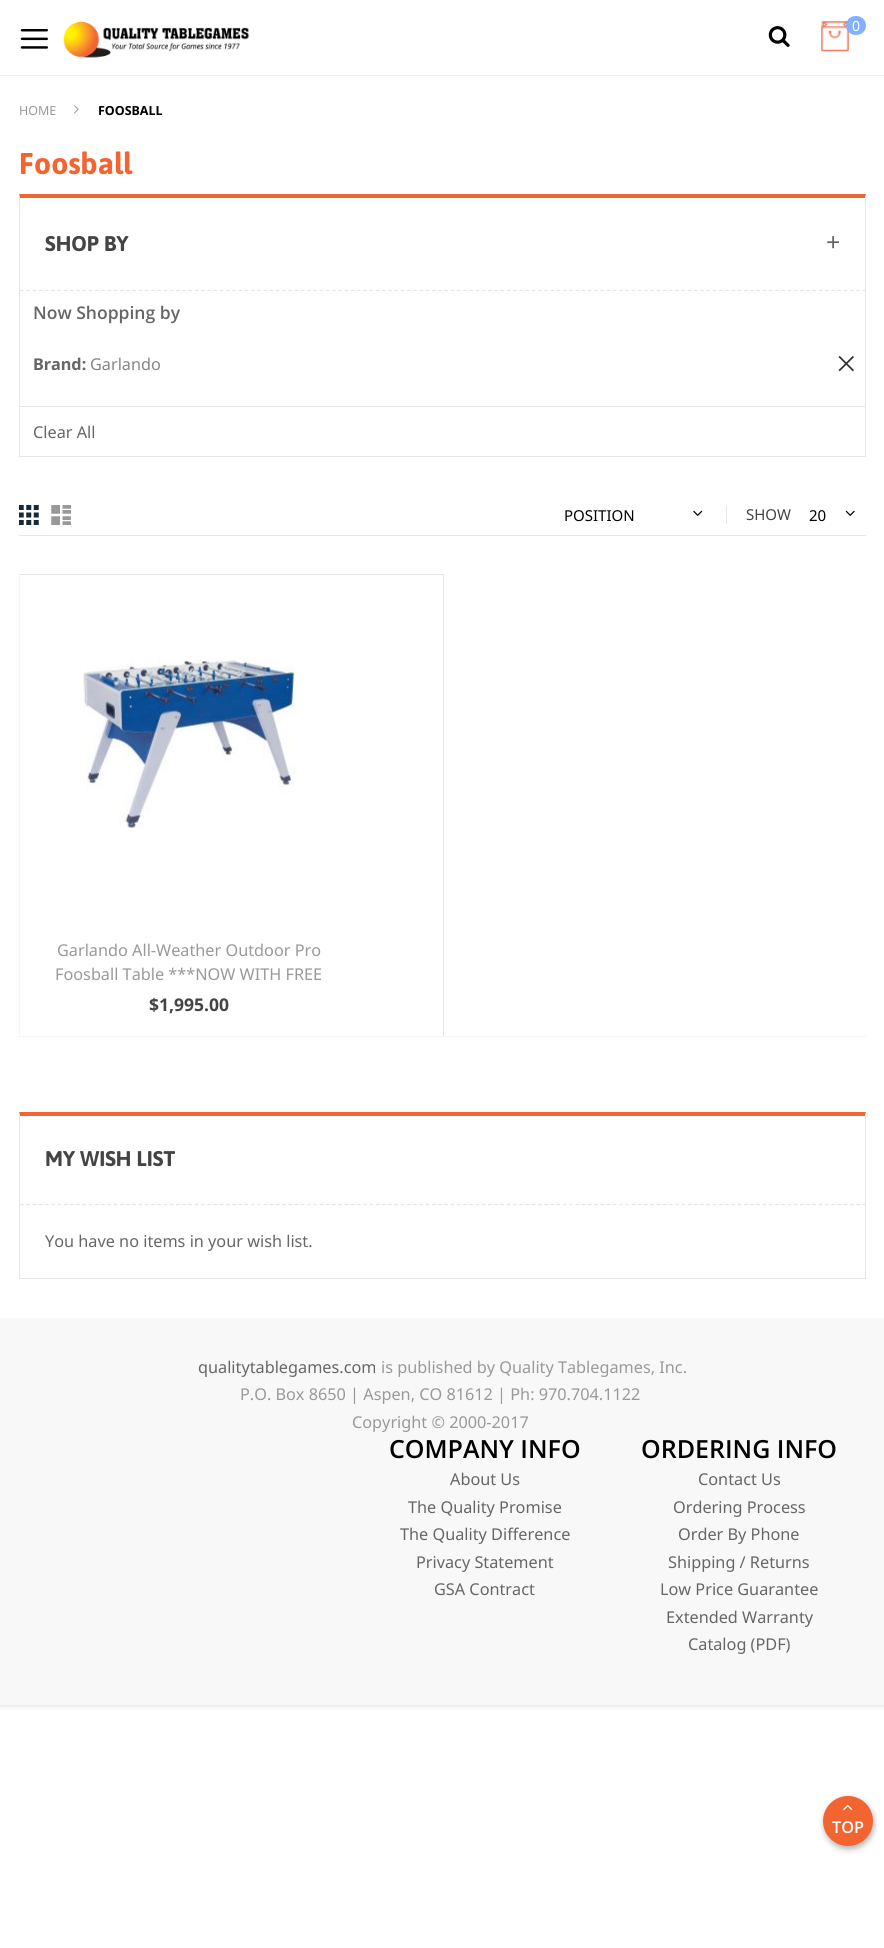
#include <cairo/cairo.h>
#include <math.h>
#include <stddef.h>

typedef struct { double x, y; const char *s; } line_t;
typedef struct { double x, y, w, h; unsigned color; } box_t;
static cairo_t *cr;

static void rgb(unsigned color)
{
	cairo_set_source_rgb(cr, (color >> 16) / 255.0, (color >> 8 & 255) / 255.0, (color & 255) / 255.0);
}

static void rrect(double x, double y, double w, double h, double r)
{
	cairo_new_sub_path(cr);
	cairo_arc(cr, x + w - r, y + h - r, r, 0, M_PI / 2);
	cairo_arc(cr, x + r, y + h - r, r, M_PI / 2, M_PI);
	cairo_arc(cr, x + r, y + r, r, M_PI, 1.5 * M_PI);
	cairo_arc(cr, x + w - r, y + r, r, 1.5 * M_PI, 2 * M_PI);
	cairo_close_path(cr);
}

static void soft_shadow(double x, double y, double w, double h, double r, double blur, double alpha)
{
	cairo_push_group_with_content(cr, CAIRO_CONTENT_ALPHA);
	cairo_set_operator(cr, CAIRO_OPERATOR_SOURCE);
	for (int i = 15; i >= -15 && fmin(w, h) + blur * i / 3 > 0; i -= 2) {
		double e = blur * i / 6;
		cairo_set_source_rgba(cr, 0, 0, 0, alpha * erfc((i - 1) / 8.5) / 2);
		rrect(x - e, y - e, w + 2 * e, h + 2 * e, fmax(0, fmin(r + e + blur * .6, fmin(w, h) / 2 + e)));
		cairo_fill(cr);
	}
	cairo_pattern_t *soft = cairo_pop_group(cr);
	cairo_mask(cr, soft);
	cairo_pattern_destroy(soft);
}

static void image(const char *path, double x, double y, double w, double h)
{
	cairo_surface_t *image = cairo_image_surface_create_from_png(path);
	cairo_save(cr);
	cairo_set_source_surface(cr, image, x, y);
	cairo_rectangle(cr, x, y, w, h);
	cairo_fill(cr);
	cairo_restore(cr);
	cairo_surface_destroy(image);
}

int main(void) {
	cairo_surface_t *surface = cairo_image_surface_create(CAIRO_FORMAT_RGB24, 884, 1948);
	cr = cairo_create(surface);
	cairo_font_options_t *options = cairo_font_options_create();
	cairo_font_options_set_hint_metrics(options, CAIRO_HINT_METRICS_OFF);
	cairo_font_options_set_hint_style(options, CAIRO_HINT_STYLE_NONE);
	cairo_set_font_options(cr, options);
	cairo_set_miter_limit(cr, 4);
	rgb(0xffffff);
	cairo_paint(cr);
	cairo_save(cr);
	cairo_rectangle(cr, 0, 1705, 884, 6);
	cairo_clip(cr);
	rgb(0xd5d5d5);
	soft_shadow(0, 0, 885, 1705, 0, 3, 1);
	cairo_restore(cr);
	rgb(0xeeeeee);
	cairo_rectangle(cr, 0, 75, 884, 1);
	cairo_fill(cr);
	image("img/1.png", 20, 29, 28, 20);
	image("img/2.png", 63, 21, 187, 37);
	image("img/3.png", 768, 26, 22, 21);
	image("img/4.png", 821, 21, 28, 31);
	rgb(0x83b1ff);
	rrect(846, 16, 20, 19, 9.5);
	cairo_fill(cr);
	image("img/5.png", 74, 105, 5, 9);
	rgb(0xf26531);
	cairo_new_path(cr);
	cairo_move_to(cr, 19, 194);
	cairo_line_to(cr, 866, 194);
	cairo_line_to(cr, 865, 198);
	cairo_line_to(cr, 20, 198);
	cairo_close_path(cr);
	cairo_fill(cr);
	rgb(0xe6e6e6);
	cairo_new_path(cr);
	cairo_move_to(cr, 866, 194);
	cairo_line_to(cr, 866, 458);
	cairo_line_to(cr, 865, 456);
	cairo_line_to(cr, 865, 198);
	cairo_close_path(cr);
	cairo_fill(cr);
	cairo_rectangle(cr, 19, 456, 847, 1);
	cairo_fill(cr);
	cairo_new_path(cr);
	cairo_move_to(cr, 19, 458);
	cairo_line_to(cr, 19, 194);
	cairo_line_to(cr, 20, 198);
	cairo_line_to(cr, 20, 456);
	cairo_close_path(cr);
	cairo_fill(cr);
	cairo_new_path(cr);
	cairo_move_to(cr, 20, 290.5);
	cairo_line_to(cr, 865, 290.5);
	cairo_set_line_width(cr, 1.2);
	cairo_set_dash(cr, (double[]){3.75, 2.49}, 2, 0);
	cairo_stroke(cr);
	cairo_rectangle(cr, 20, 406, 845, 1);
	cairo_fill(cr);
	image("img/6.png", 838, 355, 16, 17);
	cairo_rectangle(cr, 19, 535, 847, 1);
	cairo_fill(cr);
	image("img/7.png", 19, 505, 20, 20);
	image("img/8.png", 51, 505, 20, 20);
	image("img/9.png", 693, 510, 10, 6);
	cairo_rectangle(cr, 726, 506, 1, 18);
	cairo_fill(cr);
	image("img/10.png", 845, 510, 10, 6);
	{
		static const box_t items[] = {
			{19, 1036, 847, 1, 0xf6f6f6},
			{19, 574, 1, 464, 0xf6f6f6},
			{20, 574, 424, 1, 0xe6e6e6},
			{443, 574, 1, 462, 0xe6e6e6},
		};
		for (size_t i = 0; i < sizeof items / sizeof *items; i++) {
			rgb(items[i].color);
			cairo_rectangle(cr, items[i].x, items[i].y, items[i].w, items[i].h);
			cairo_fill(cr);
		}
	}
	image("img/11.png", 83, 659, 213, 169);
	rgb(0xf26531);
	cairo_new_path(cr);
	cairo_move_to(cr, 19, 1112);
	cairo_line_to(cr, 866, 1112);
	cairo_line_to(cr, 865, 1116);
	cairo_line_to(cr, 20, 1116);
	cairo_close_path(cr);
	cairo_fill(cr);
	rgb(0xe6e6e6);
	cairo_new_path(cr);
	cairo_move_to(cr, 866, 1112);
	cairo_line_to(cr, 866, 1279);
	cairo_line_to(cr, 865, 1278);
	cairo_line_to(cr, 865, 1116);
	cairo_close_path(cr);
	cairo_fill(cr);
	cairo_rectangle(cr, 19, 1278, 847, 1);
	cairo_fill(cr);
	cairo_new_path(cr);
	cairo_move_to(cr, 19, 1279);
	cairo_line_to(cr, 19, 1112);
	cairo_line_to(cr, 20, 1116);
	cairo_line_to(cr, 20, 1278);
	cairo_close_path(cr);
	cairo_fill(cr);
	cairo_new_path(cr);
	cairo_move_to(cr, 20, 1204.5);
	cairo_line_to(cr, 865, 1204.5);
	cairo_stroke(cr);
	rgb(0xf8f8f8);
	cairo_rectangle(cr, 0, 1318, 884, 387);
	cairo_fill(cr);
	rgb(0x000000);
	soft_shadow(824, 1799, 50, 50, 25, 3, 0.3);
	rgb(0xf26531);
	cairo_arc(cr, 848, 1821, 25, 0, 2 * M_PI);
	cairo_fill(cr);
	image("img/12.png", 843, 1804, 10, 6);
	cairo_select_font_face(cr, "Noto Sans", CAIRO_FONT_SLANT_NORMAL, CAIRO_FONT_WEIGHT_NORMAL);
	cairo_set_font_size(cr, 14);
	rgb(0xffffff);
	cairo_move_to(cr, 852, 31);
	cairo_show_text(cr, "0");
	cairo_set_font_size(cr, 12.5);
	rgb(0x999999);
	cairo_move_to(cr, 19, 115);
	cairo_show_text(cr, "HOME");
	cairo_select_font_face(cr, "Noto Sans", CAIRO_FONT_SLANT_NORMAL, CAIRO_FONT_WEIGHT_BOLD);
	rgb(0x000000);
	cairo_move_to(cr, 98, 115);
	cairo_show_text(cr, "FOOSBALL");
	cairo_select_font_face(cr, "Asap", CAIRO_FONT_SLANT_NORMAL, CAIRO_FONT_WEIGHT_BOLD);
	cairo_set_font_size(cr, 30);
	rgb(0xf26531);
	cairo_move_to(cr, 19, 174);
	cairo_show_text(cr, "Foosball");
	cairo_set_font_size(cr, 21.25);
	rgb(0x444444);
	cairo_move_to(cr, 45, 251);
	cairo_show_text(cr, "SHOP BY");
	cairo_select_font_face(cr, "Noto Sans", CAIRO_FONT_SLANT_NORMAL, CAIRO_FONT_WEIGHT_NORMAL);
	cairo_set_font_size(cr, 25);
	rgb(0x666666);
	cairo_move_to(cr, 826, 251);
	cairo_show_text(cr, "+");
	cairo_select_font_face(cr, "Open Sans SemiBold", CAIRO_FONT_SLANT_NORMAL, CAIRO_FONT_WEIGHT_NORMAL);
	cairo_set_font_size(cr, 17.5);
	cairo_move_to(cr, 33, 319);
	cairo_show_text(cr, "Now Shopping by");
	cairo_select_font_face(cr, "Noto Sans", CAIRO_FONT_SLANT_NORMAL, CAIRO_FONT_WEIGHT_BOLD);
	cairo_set_font_size(cr, 16.25);
	cairo_move_to(cr, 33, 370);
	cairo_show_text(cr, "Brand:");
	cairo_select_font_face(cr, "Noto Sans", CAIRO_FONT_SLANT_NORMAL, CAIRO_FONT_WEIGHT_NORMAL);
	rgb(0x858585);
	cairo_move_to(cr, 90, 370);
	cairo_show_text(cr, "Garlando");
	rgb(0x666666);
	cairo_move_to(cr, 33, 438);
	cairo_show_text(cr, "Clear All");
	cairo_set_font_size(cr, 15);
	rgb(0x000000);
	cairo_move_to(cr, 564, 521);
	cairo_show_text(cr, "POSITION");
	rgb(0x444444);
	cairo_move_to(cr, 746, 520);
	cairo_show_text(cr, "SHOW");
	rgb(0x000000);
	cairo_move_to(cr, 809, 521);
	cairo_show_text(cr, "20");
	cairo_set_font_size(cr, 16.25);
	rgb(0x999999);
	cairo_move_to(cr, 57, 956);
	cairo_show_text(cr, "Garlando All-Weather Outdoor Pro");
	cairo_move_to(cr, 55, 980);
	cairo_show_text(cr, "Foosball Table ***NOW WITH FREE");
	cairo_select_font_face(cr, "Noto Sans", CAIRO_FONT_SLANT_NORMAL, CAIRO_FONT_WEIGHT_BOLD);
	cairo_set_font_size(cr, 17.5);
	rgb(0x444444);
	cairo_move_to(cr, 149, 1011);
	cairo_show_text(cr, "$1,995.00");
	cairo_select_font_face(cr, "Asap", CAIRO_FONT_SLANT_NORMAL, CAIRO_FONT_WEIGHT_BOLD);
	cairo_set_font_size(cr, 21.25);
	cairo_move_to(cr, 45, 1166);
	cairo_show_text(cr, "MY WISH LIST");
	cairo_select_font_face(cr, "Noto Sans", CAIRO_FONT_SLANT_NORMAL, CAIRO_FONT_WEIGHT_NORMAL);
	cairo_set_font_size(cr, 16.25);
	rgb(0x666666);
	cairo_move_to(cr, 45, 1247);
	cairo_show_text(cr, "You have no items in your wish list.");
	cairo_move_to(cr, 198, 1373);
	cairo_show_text(cr, "qualitytablegames.com");
	rgb(0x999999);
	{
		static const line_t items[] = {
			{381, 1373, "is published by Quality Tablegames, Inc."},
			{240, 1400, "P.O. Box 8650 | Aspen, CO 81612 | Ph: 970.704.1122"},
			{352, 1428, "Copyright © 2000-2017"},
		};
		for (size_t i = 0; i < sizeof items / sizeof *items; i++) {
			cairo_move_to(cr, items[i].x, items[i].y);
			cairo_show_text(cr, items[i].s);
		}
	}
	cairo_select_font_face(cr, "Open Sans SemiBold", CAIRO_FONT_SLANT_NORMAL, CAIRO_FONT_WEIGHT_NORMAL);
	cairo_set_font_size(cr, 25);
	rgb(0x000000);
	cairo_move_to(cr, 389, 1458);
	cairo_show_text(cr, "COMPANY INFO");
	cairo_select_font_face(cr, "Noto Sans", CAIRO_FONT_SLANT_NORMAL, CAIRO_FONT_WEIGHT_NORMAL);
	cairo_set_font_size(cr, 16.25);
	rgb(0x666666);
	{
		static const line_t items[] = {
			{450, 1485, "About Us"},
			{408, 1513, "The Quality Promise"},
			{400, 1540, "The Quality Difference"},
			{416, 1568, "Privacy Statement"},
			{434, 1595, "GSA Contract"},
		};
		for (size_t i = 0; i < sizeof items / sizeof *items; i++) {
			cairo_move_to(cr, items[i].x, items[i].y);
			cairo_show_text(cr, items[i].s);
		}
	}
	cairo_select_font_face(cr, "Open Sans SemiBold", CAIRO_FONT_SLANT_NORMAL, CAIRO_FONT_WEIGHT_NORMAL);
	cairo_set_font_size(cr, 25);
	rgb(0x000000);
	cairo_move_to(cr, 641, 1458);
	cairo_show_text(cr, "ORDERING INFO");
	cairo_select_font_face(cr, "Noto Sans", CAIRO_FONT_SLANT_NORMAL, CAIRO_FONT_WEIGHT_NORMAL);
	cairo_set_font_size(cr, 16.25);
	rgb(0x666666);
	{
		static const line_t items[] = {
			{698, 1485, "Contact Us"},
			{673, 1513, "Ordering Process"},
			{678, 1540, "Order By Phone"},
			{668, 1568, "Shipping / Returns"},
			{660, 1595, "Low Price Guarantee"},
			{666, 1623, "Extended Warranty"},
			{688, 1650, "Catalog (PDF)"},
		};
		for (size_t i = 0; i < sizeof items / sizeof *items; i++) {
			cairo_move_to(cr, items[i].x, items[i].y);
			cairo_show_text(cr, items[i].s);
		}
	}
	cairo_select_font_face(cr, "Open Sans SemiBold", CAIRO_FONT_SLANT_NORMAL, CAIRO_FONT_WEIGHT_NORMAL);
	rgb(0xffffff);
	cairo_move_to(cr, 832, 1833);
	cairo_show_text(cr, "TOP");
	cairo_surface_write_to_png(surface, "page.png");
	cairo_font_options_destroy(options);
	cairo_destroy(cr);
	cairo_surface_destroy(surface);
	return 0;
}
